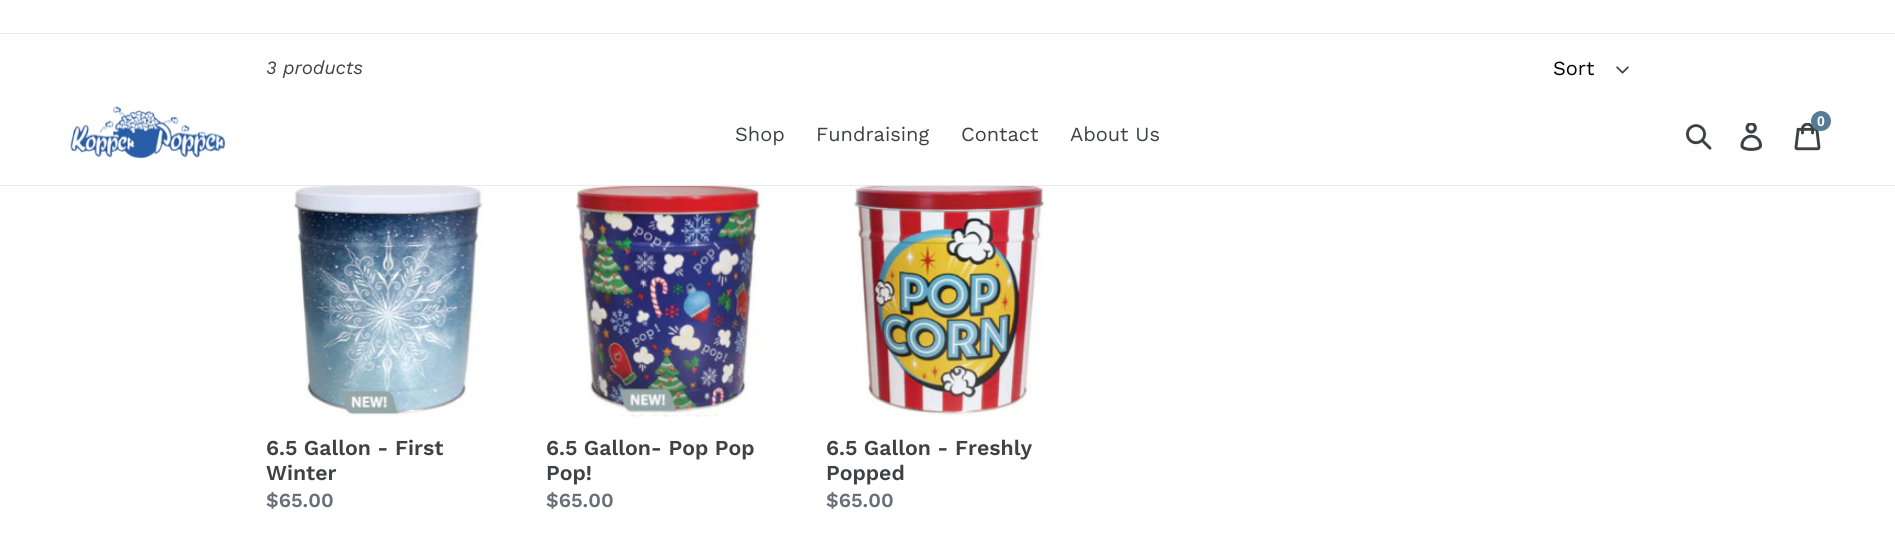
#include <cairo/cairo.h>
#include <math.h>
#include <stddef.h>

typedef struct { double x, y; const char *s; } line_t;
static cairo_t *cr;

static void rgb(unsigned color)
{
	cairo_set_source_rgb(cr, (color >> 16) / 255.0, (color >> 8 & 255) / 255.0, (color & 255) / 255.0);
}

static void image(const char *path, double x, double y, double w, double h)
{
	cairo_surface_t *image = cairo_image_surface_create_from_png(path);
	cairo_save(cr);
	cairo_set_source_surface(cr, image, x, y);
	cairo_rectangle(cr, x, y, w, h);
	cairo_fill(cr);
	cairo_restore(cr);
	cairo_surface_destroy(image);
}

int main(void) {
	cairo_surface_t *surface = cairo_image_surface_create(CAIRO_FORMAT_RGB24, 1895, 555);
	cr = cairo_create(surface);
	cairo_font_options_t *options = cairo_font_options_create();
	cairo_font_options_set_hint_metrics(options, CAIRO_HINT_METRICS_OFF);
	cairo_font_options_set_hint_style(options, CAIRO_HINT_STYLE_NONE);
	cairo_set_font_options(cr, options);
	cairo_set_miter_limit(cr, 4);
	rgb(0xffffff);
	cairo_paint(cr);
	rgb(0xe8e9eb);
	cairo_rectangle(cr, 0, 33, 1895, 1);
	cairo_fill(cr);
	image("img/1.png", 1616, 66, 13, 8);
	image("img/2.png", 292, 186, 192, 230);
	image("img/3.png", 576, 186, 187, 231);
	image("img/4.png", 854, 186, 191, 231);
	cairo_rectangle(cr, 0, 185, 1895, 1);
	cairo_fill(cr);
	image("img/5.png", 70, 106, 155, 53);
	image("img/6.png", 1794, 123, 27, 28);
	rgb(0x557b97);
	cairo_arc(cr, 1821, 121, 10, 0, 2 * M_PI);
	cairo_fill(cr);
	image("img/7.png", 1686, 124, 26, 26);
	image("img/8.png", 1740, 123, 23, 28);
	cairo_select_font_face(cr, "Work Sans", CAIRO_FONT_SLANT_ITALIC, CAIRO_FONT_WEIGHT_NORMAL);
	cairo_set_font_size(cr, 18.75);
	rgb(0x3d4246);
	cairo_move_to(cr, 266, 74);
	cairo_show_text(cr, "3 products");
	cairo_select_font_face(cr, "Work Sans", CAIRO_FONT_SLANT_NORMAL, CAIRO_FONT_WEIGHT_NORMAL);
	cairo_set_font_size(cr, 20);
	rgb(0x000000);
	cairo_move_to(cr, 1553, 75);
	cairo_show_text(cr, "Sort");
	cairo_select_font_face(cr, "Work Sans SemiBold", CAIRO_FONT_SLANT_NORMAL, CAIRO_FONT_WEIGHT_NORMAL);
	cairo_set_font_size(cr, 21.25);
	rgb(0x3d4246);
	cairo_move_to(cr, 266, 455);
	cairo_show_text(cr, "6.5 Gallon - First");
	cairo_move_to(cr, 266, 480);
	cairo_show_text(cr, "Winter");
	cairo_set_font_size(cr, 20);
	rgb(0x69727b);
	cairo_move_to(cr, 266, 507);
	cairo_show_text(cr, "$65.00");
	cairo_set_font_size(cr, 21.25);
	rgb(0x3d4246);
	cairo_move_to(cr, 546, 455);
	cairo_show_text(cr, "6.5 Gallon- Pop Pop");
	cairo_move_to(cr, 546, 480);
	cairo_show_text(cr, "Pop!");
	cairo_set_font_size(cr, 20);
	rgb(0x69727b);
	cairo_move_to(cr, 546, 507);
	cairo_show_text(cr, "$65.00");
	cairo_set_font_size(cr, 21.25);
	rgb(0x3d4246);
	cairo_move_to(cr, 826, 455);
	cairo_show_text(cr, "6.5 Gallon - Freshly");
	cairo_move_to(cr, 826, 480);
	cairo_show_text(cr, "Popped");
	cairo_set_font_size(cr, 20);
	rgb(0x69727b);
	cairo_move_to(cr, 826, 507);
	cairo_show_text(cr, "$65.00");
	cairo_select_font_face(cr, "Liberation Sans", CAIRO_FONT_SLANT_NORMAL, CAIRO_FONT_WEIGHT_BOLD);
	cairo_set_font_size(cr, 14);
	rgb(0xffffff);
	cairo_move_to(cr, 1817, 126);
	cairo_show_text(cr, "0");
	cairo_select_font_face(cr, "Work Sans", CAIRO_FONT_SLANT_NORMAL, CAIRO_FONT_WEIGHT_NORMAL);
	cairo_set_font_size(cr, 20);
	rgb(0x3d4246);
	{
		static const line_t items[] = {
			{735, 141, "Shop"},
			{816, 141, "Fundraising"},
			{961, 141, "Contact"},
			{1070, 141, "About Us"},
		};
		for (size_t i = 0; i < sizeof items / sizeof *items; i++) {
			cairo_move_to(cr, items[i].x, items[i].y);
			cairo_show_text(cr, items[i].s);
		}
	}
	cairo_surface_write_to_png(surface, "page.png");
	cairo_font_options_destroy(options);
	cairo_destroy(cr);
	cairo_surface_destroy(surface);
	return 0;
}
